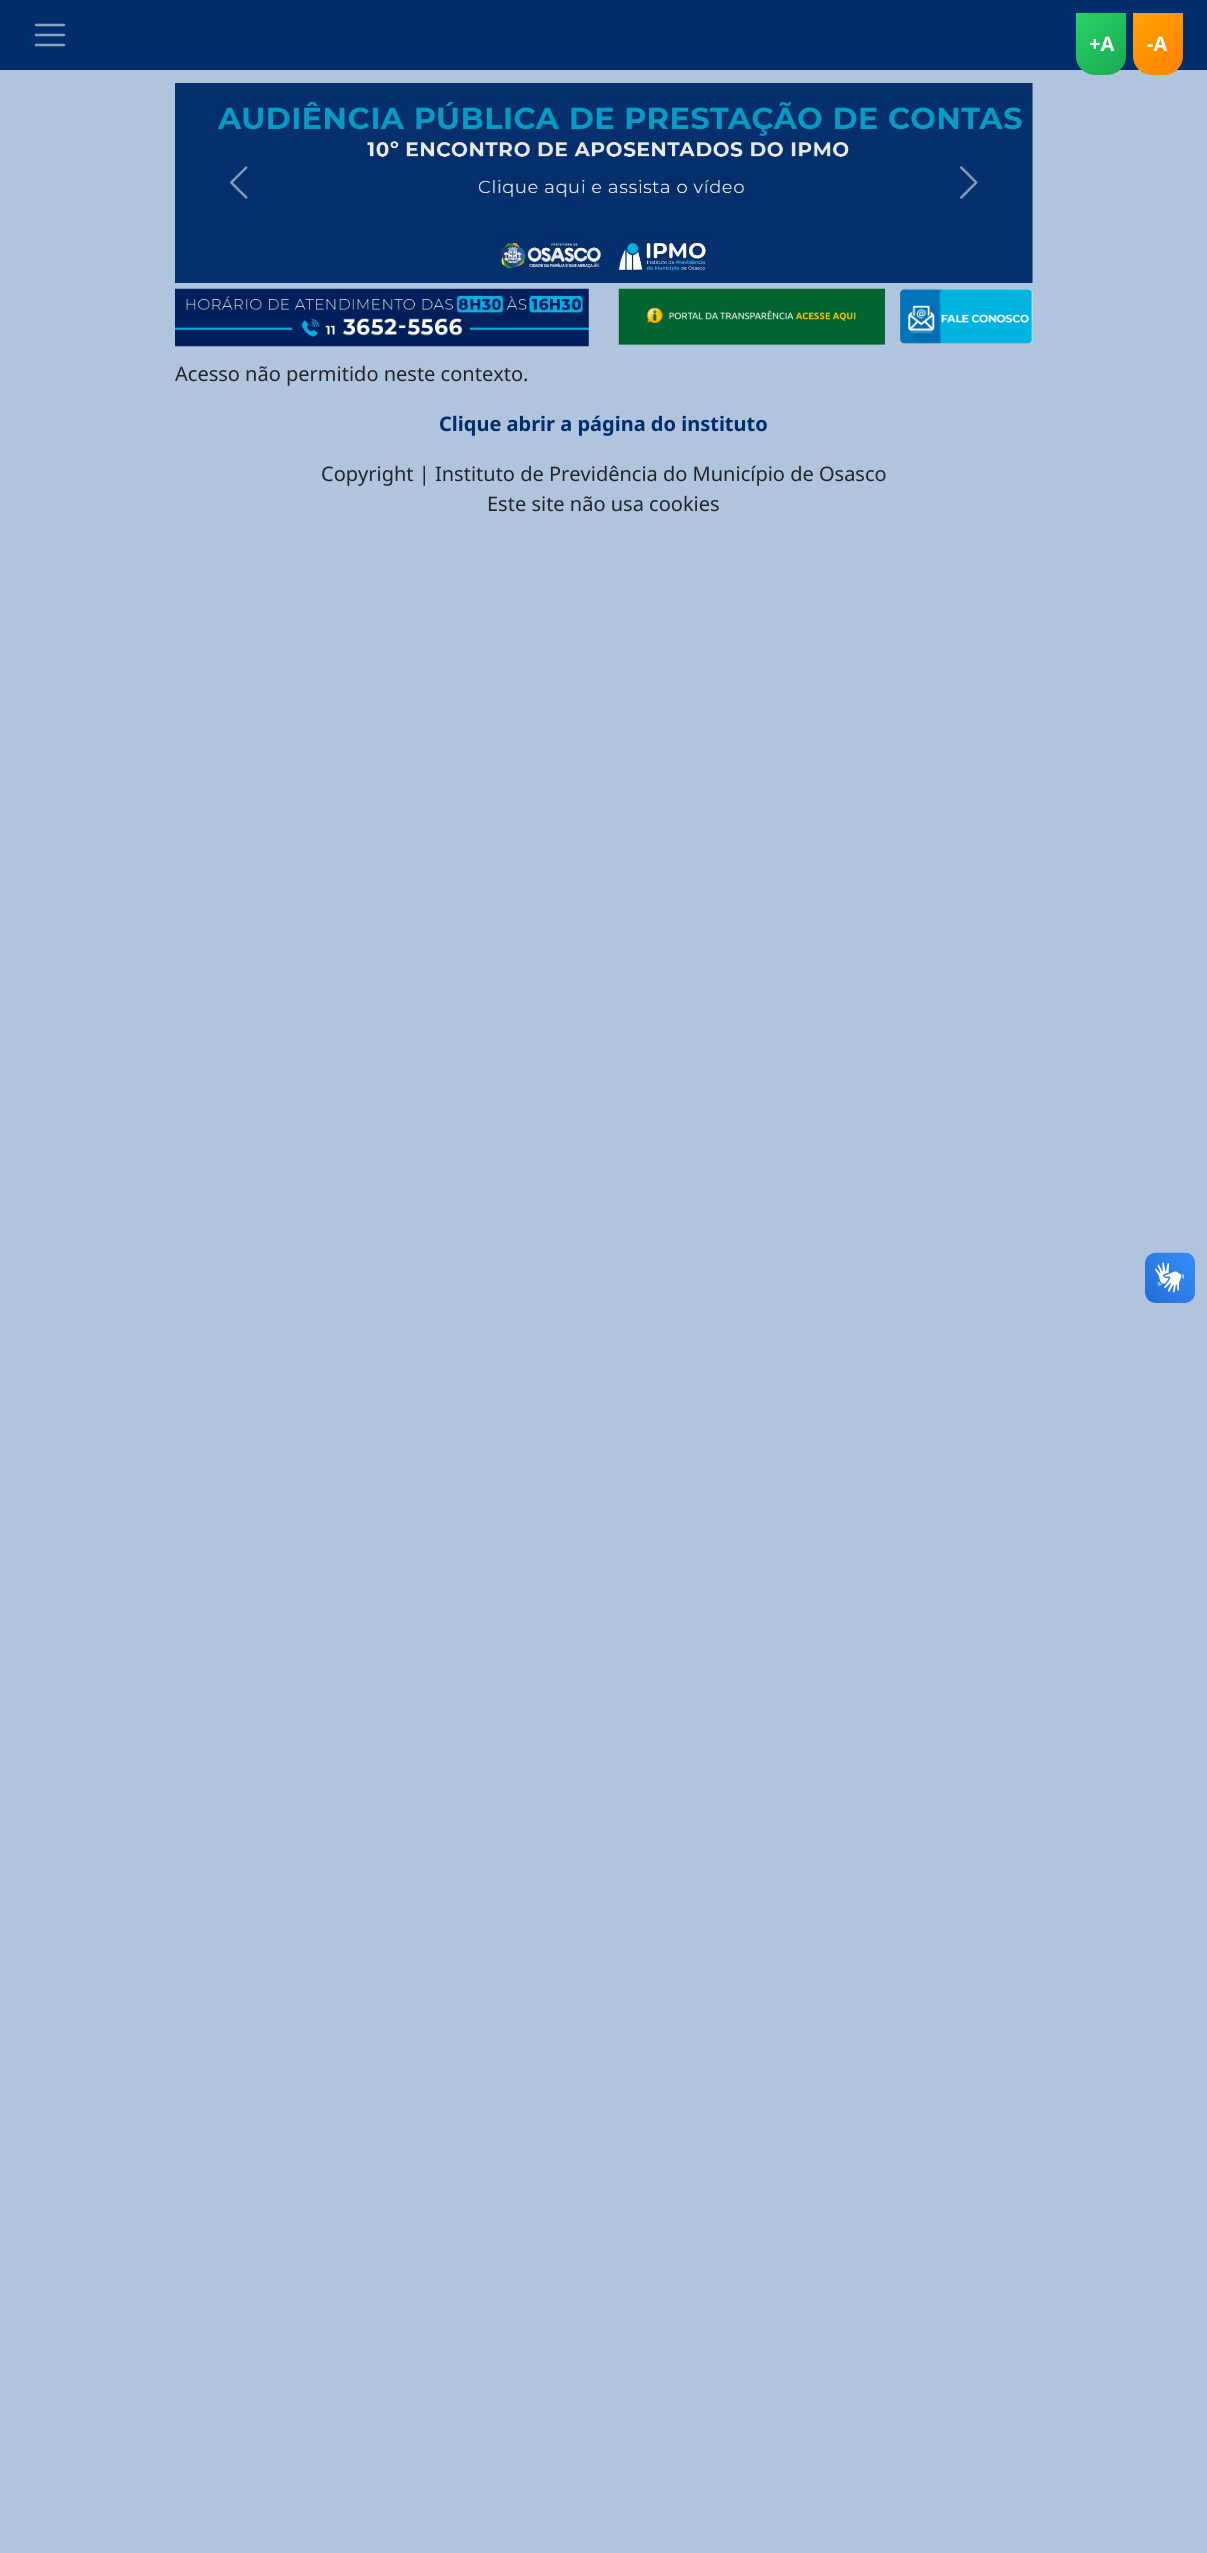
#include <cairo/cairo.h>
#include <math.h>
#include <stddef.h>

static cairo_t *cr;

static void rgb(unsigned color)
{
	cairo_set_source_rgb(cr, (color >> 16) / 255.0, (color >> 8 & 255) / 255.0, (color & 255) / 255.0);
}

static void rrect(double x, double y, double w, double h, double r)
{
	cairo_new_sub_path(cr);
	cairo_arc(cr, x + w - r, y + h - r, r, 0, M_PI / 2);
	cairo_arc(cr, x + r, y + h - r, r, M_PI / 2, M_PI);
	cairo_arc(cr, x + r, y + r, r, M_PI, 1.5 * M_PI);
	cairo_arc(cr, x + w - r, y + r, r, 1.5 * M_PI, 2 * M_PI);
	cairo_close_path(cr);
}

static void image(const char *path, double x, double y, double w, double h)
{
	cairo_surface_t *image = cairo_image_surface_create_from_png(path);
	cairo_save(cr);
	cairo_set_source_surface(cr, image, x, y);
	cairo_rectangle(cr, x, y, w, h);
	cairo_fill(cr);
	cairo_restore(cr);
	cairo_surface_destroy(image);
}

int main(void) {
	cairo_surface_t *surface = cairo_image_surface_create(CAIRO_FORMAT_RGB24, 1207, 2553);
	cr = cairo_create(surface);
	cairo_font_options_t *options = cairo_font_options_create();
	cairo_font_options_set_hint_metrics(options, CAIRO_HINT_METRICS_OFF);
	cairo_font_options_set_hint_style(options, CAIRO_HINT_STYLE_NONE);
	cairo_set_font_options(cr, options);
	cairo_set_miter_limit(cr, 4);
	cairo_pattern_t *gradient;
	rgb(0xb0c4de);
	cairo_paint(cr);
	rgb(0x002e6d);
	cairo_rectangle(cr, 0, 0, 1207, 70);
	cairo_fill(cr);
	rrect(15.5, 10.5, 69, 49, 7.5);
	rgb(0x002962);
	cairo_set_line_width(cr, 1);
	cairo_stroke(cr);
	cairo_new_path(cr);
	cairo_move_to(cr, 36, 25);
	cairo_line_to(cr, 64, 25);
	cairo_move_to(cr, 36, 35);
	cairo_line_to(cr, 64, 35);
	cairo_move_to(cr, 36, 45);
	cairo_line_to(cr, 64, 45);
	rgb(0x8ca1bd);
	cairo_set_line_width(cr, 2.5);
	cairo_set_line_cap(cr, CAIRO_LINE_CAP_ROUND);
	cairo_stroke(cr);
	gradient = cairo_pattern_create_linear(1073, 16, 1129, 72);
	cairo_pattern_add_color_stop_rgba(gradient, 0, 0.145, 0.827, 0.4, 1);
	cairo_pattern_add_color_stop_rgba(gradient, 1, 0.114, 0.659, 0.318, 1);
	cairo_set_source(cr, gradient);
	cairo_pattern_destroy(gradient);
	cairo_new_path(cr);
	cairo_move_to(cr, 1076, 13);
	cairo_line_to(cr, 1126, 13);
	cairo_line_to(cr, 1126, 56);
	cairo_curve_to(cr, 1126, 66.5, 1117.5, 75, 1107, 75);
	cairo_line_to(cr, 1095, 75);
	cairo_curve_to(cr, 1084.5, 75, 1076, 66.5, 1076, 56);
	cairo_close_path(cr);
	cairo_fill(cr);
	gradient = cairo_pattern_create_linear(1129, 16, 1186, 72);
	cairo_pattern_add_color_stop_rgba(gradient, 0, 1, 0.647, 0, 1);
	cairo_pattern_add_color_stop_rgba(gradient, 1, 1, 0.498, 0, 1);
	cairo_set_source(cr, gradient);
	cairo_pattern_destroy(gradient);
	cairo_new_path(cr);
	cairo_move_to(cr, 1133, 13);
	cairo_line_to(cr, 1183, 13);
	cairo_line_to(cr, 1183, 56);
	cairo_curve_to(cr, 1183, 66.5, 1174.5, 75, 1164, 75);
	cairo_line_to(cr, 1152, 75);
	cairo_curve_to(cr, 1141.5, 75, 1133, 66.5, 1133, 56);
	cairo_close_path(cr);
	cairo_fill(cr);
	image("img/1.png", 175, 83, 858, 200);
	image("img/2.png", 230, 166, 18, 33);
	image("img/3.png", 960, 166, 18, 33);
	image("img/4.png", 175, 288, 414, 59);
	image("img/5.png", 618, 288, 267, 57);
	image("img/6.png", 900, 288, 133, 56);
	image("img/7.png", 1145, 1252, 50, 51);
	image("img/8.png", 1145, 1253, 50, 50);
	cairo_select_font_face(cr, "Noto Sans", CAIRO_FONT_SLANT_NORMAL, CAIRO_FONT_WEIGHT_BOLD);
	cairo_set_font_size(cr, 20);
	rgb(0xffffff);
	cairo_move_to(cr, 1089, 51);
	cairo_show_text(cr, "+A");
	cairo_move_to(cr, 1147, 51);
	cairo_show_text(cr, "-A");
	cairo_select_font_face(cr, "Noto Sans", CAIRO_FONT_SLANT_NORMAL, CAIRO_FONT_WEIGHT_NORMAL);
	rgb(0x212529);
	cairo_move_to(cr, 175, 381);
	cairo_show_text(cr, "Acesso não permitido neste contexto.");
	cairo_select_font_face(cr, "Noto Sans", CAIRO_FONT_SLANT_NORMAL, CAIRO_FONT_WEIGHT_BOLD);
	rgb(0x002e6d);
	cairo_move_to(cr, 439, 431);
	cairo_show_text(cr, "Clique abrir a página do instituto");
	cairo_select_font_face(cr, "Noto Sans", CAIRO_FONT_SLANT_NORMAL, CAIRO_FONT_WEIGHT_NORMAL);
	rgb(0x212529);
	cairo_move_to(cr, 321, 481);
	cairo_show_text(cr, "Copyright | Instituto de Previdência do Município de Osasco");
	cairo_move_to(cr, 487, 511);
	cairo_show_text(cr, "Este site não usa cookies");
	cairo_surface_write_to_png(surface, "page.png");
	cairo_font_options_destroy(options);
	cairo_destroy(cr);
	cairo_surface_destroy(surface);
	return 0;
}
